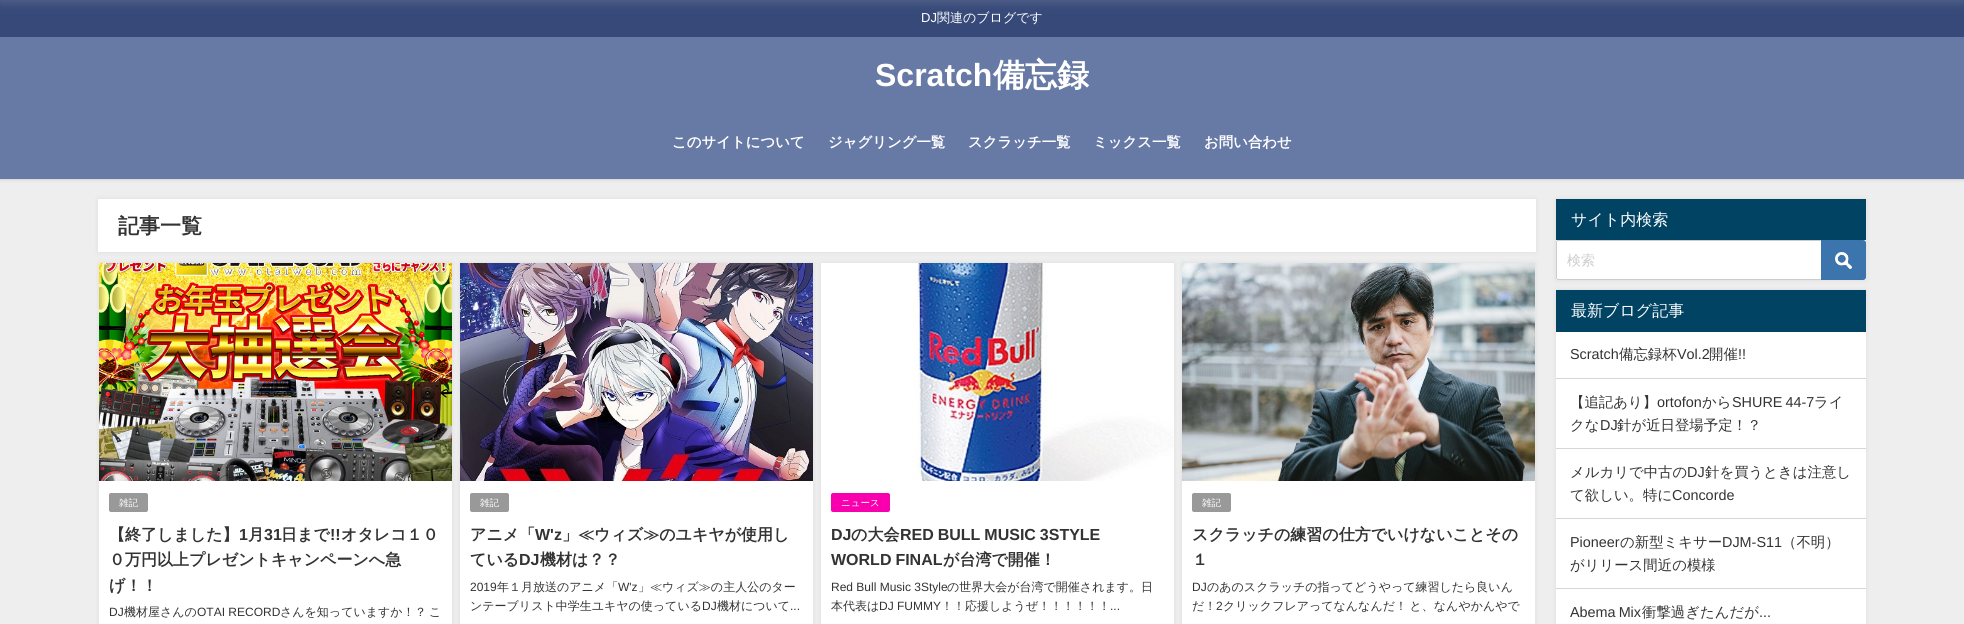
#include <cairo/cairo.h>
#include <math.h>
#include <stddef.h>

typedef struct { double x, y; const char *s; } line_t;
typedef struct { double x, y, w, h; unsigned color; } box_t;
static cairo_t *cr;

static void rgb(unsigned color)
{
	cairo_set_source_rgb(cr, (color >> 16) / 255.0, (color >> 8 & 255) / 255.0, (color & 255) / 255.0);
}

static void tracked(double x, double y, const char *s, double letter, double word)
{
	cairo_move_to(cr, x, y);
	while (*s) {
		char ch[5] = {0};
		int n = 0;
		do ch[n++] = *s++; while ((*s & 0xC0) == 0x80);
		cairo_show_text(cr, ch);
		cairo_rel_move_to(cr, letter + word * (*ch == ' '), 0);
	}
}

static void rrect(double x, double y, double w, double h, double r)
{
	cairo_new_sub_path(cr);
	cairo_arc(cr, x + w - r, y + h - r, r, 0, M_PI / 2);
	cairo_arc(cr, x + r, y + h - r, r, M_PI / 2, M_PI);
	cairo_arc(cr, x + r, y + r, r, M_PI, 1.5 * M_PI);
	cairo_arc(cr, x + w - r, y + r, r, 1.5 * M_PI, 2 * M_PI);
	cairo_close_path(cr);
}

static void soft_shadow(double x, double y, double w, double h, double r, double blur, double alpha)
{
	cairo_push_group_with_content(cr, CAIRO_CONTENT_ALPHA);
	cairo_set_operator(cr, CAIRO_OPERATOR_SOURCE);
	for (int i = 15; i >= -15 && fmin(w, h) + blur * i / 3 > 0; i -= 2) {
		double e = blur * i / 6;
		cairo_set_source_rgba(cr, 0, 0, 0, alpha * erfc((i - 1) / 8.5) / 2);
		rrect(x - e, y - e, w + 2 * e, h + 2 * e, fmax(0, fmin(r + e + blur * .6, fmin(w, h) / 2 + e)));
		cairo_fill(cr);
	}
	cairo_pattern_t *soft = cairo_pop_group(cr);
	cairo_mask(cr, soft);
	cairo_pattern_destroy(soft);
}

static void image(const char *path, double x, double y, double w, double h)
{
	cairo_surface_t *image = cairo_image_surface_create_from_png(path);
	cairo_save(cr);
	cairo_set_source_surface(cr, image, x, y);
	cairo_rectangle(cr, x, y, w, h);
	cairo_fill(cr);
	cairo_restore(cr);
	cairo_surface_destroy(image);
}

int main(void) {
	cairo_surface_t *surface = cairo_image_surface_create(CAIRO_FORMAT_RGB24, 1964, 624);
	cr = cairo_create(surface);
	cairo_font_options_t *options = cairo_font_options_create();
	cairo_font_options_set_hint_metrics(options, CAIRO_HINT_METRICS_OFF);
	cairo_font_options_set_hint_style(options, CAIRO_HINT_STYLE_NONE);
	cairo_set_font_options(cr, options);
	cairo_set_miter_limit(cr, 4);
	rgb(0xeeeeee);
	cairo_paint(cr);
	rgb(0x000000);
	soft_shadow(0, 0, 1964, 179, 0, 2, 0.2);
	rgb(0x364979);
	cairo_rectangle(cr, 0, 0, 1964, 37);
	cairo_fill(cr);
	rgb(0xc8c8c8);
	soft_shadow(0, -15, 1964, 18, 0, 5, 0.2);
	rgb(0x6779a5);
	cairo_rectangle(cr, 0, 37, 1964, 142);
	cairo_fill(cr);
	rgb(0x969696);
	soft_shadow(98, 199, 1438, 53, 0, 2.5, 0.2);
	rgb(0xffffff);
	cairo_rectangle(cr, 98, 199, 1438, 53);
	cairo_fill(cr);
	rgb(0x969696);
	soft_shadow(99, 263, 353, 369, 0, 2.5, 0.2);
	rgb(0xffffff);
	cairo_rectangle(cr, 99, 481, 353, 143);
	cairo_fill(cr);
	image("img/1.png", 99, 263, 353, 218);
	rgb(0x999999);
	rrect(109, 493, 39, 19, 2);
	cairo_fill(cr);
	rgb(0x969696);
	soft_shadow(460, 263, 353, 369, 0, 2.5, 0.2);
	rgb(0xffffff);
	cairo_rectangle(cr, 460, 481, 353, 143);
	cairo_fill(cr);
	image("img/2.png", 460, 263, 353, 218);
	rgb(0x999999);
	rrect(470, 493, 39, 19, 2);
	cairo_fill(cr);
	rgb(0x969696);
	soft_shadow(821, 263, 353, 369, 0, 2.5, 0.2);
	rgb(0xffffff);
	cairo_rectangle(cr, 821, 481, 353, 143);
	cairo_fill(cr);
	image("img/3.png", 821, 263, 353, 218);
	rgb(0xf900ae);
	rrect(831, 493, 59, 19, 2);
	cairo_fill(cr);
	rgb(0x969696);
	soft_shadow(1182, 263, 353, 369, 0, 2.5, 0.2);
	rgb(0xffffff);
	cairo_rectangle(cr, 1182, 481, 353, 143);
	cairo_fill(cr);
	image("img/4.png", 1182, 263, 353, 218);
	rgb(0x999999);
	rrect(1192, 493, 39, 19, 2);
	cairo_fill(cr);
	rgb(0x969696);
	soft_shadow(1556, 199, 310, 81, 0, 2.5, 0.2);
	rgb(0xffffff);
	cairo_rectangle(cr, 1556, 240, 310, 40);
	cairo_fill(cr);
	rgb(0x004363);
	cairo_rectangle(cr, 1556, 199, 310, 41);
	cairo_fill(cr);
	rrect(1556.5, 240.5, 309, 39, 1.5);
	rgb(0xcccccc);
	cairo_set_line_width(cr, 1);
	cairo_stroke(cr);
	rgb(0x3c74ad);
	cairo_new_path(cr);
	cairo_move_to(cr, 1821, 240);
	cairo_line_to(cr, 1863, 240);
	cairo_curve_to(cr, 1864.5, 240, 1866, 241.5, 1866, 243);
	cairo_line_to(cr, 1866, 277);
	cairo_curve_to(cr, 1866, 278.5, 1864.5, 280, 1863, 280);
	cairo_line_to(cr, 1821, 280);
	cairo_close_path(cr);
	cairo_fill(cr);
	image("img/5.png", 1835, 252, 17, 17);
	rgb(0x969696);
	soft_shadow(1556, 290, 310, 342, 0, 2.5, 0.2);
	{
		static const box_t items[] = {
			{1556, 332, 310, 292, 0xffffff},
			{1556, 290, 310, 42, 0x004363},
			{1556, 378, 310, 1, 0xd6d6d6},
			{1556, 448, 310, 1, 0xd6d6d6},
			{1556, 518, 310, 1, 0xd6d6d6},
			{1556, 588, 310, 1, 0xd6d6d6},
		};
		for (size_t i = 0; i < sizeof items / sizeof *items; i++) {
			rgb(items[i].color);
			cairo_rectangle(cr, items[i].x, items[i].y, items[i].w, items[i].h);
			cairo_fill(cr);
		}
	}
	cairo_select_font_face(cr, "Liberation Sans", CAIRO_FONT_SLANT_NORMAL, CAIRO_FONT_WEIGHT_NORMAL);
	cairo_set_font_size(cr, 13);
	rgb(0xffffff);
	cairo_move_to(cr, 921, 22);
	cairo_show_text(cr, "DJ");
	cairo_select_font_face(cr, "WenQuanYi Zen Hei Medium", CAIRO_FONT_SLANT_NORMAL, CAIRO_FONT_WEIGHT_NORMAL);
	cairo_move_to(cr, 937, 22);
	cairo_show_text(cr, "関連のブログです");
	cairo_select_font_face(cr, "Liberation Sans", CAIRO_FONT_SLANT_NORMAL, CAIRO_FONT_WEIGHT_BOLD);
	cairo_set_font_size(cr, 32);
	cairo_move_to(cr, 875, 86);
	cairo_show_text(cr, "Scratch");
	cairo_select_font_face(cr, "WenQuanYi Zen Hei", CAIRO_FONT_SLANT_NORMAL, CAIRO_FONT_WEIGHT_BOLD);
	cairo_move_to(cr, 993, 86);
	cairo_show_text(cr, "備忘録");
	cairo_set_font_size(cr, 14.4);
	{
		static const line_t items[] = {
			{672, 147, "このサイトについて"},
			{828, 147, "ジャグリング一覧"},
			{968, 147, "スクラッチ一覧"},
			{1093, 147, "ミックス一覧"},
			{1204, 147, "お問い合わせ"},
		};
		for (size_t i = 0; i < sizeof items / sizeof *items; i++) {
			cairo_move_to(cr, items[i].x, items[i].y);
			cairo_show_text(cr, items[i].s);
		}
	}
	cairo_set_font_size(cr, 21);
	rgb(0x333333);
	cairo_move_to(cr, 118, 233);
	cairo_show_text(cr, "記事一覧");
	cairo_select_font_face(cr, "WenQuanYi Zen Hei Medium", CAIRO_FONT_SLANT_NORMAL, CAIRO_FONT_WEIGHT_NORMAL);
	cairo_set_font_size(cr, 9.5);
	rgb(0xffffff);
	cairo_move_to(cr, 119, 506);
	cairo_show_text(cr, "雑記");
	cairo_select_font_face(cr, "WenQuanYi Zen Hei", CAIRO_FONT_SLANT_NORMAL, CAIRO_FONT_WEIGHT_BOLD);
	cairo_set_font_size(cr, 16);
	rgb(0x333333);
	cairo_move_to(cr, 109, 540);
	cairo_show_text(cr, "【終了しました】");
	cairo_select_font_face(cr, "Liberation Sans", CAIRO_FONT_SLANT_NORMAL, CAIRO_FONT_WEIGHT_BOLD);
	cairo_move_to(cr, 239, 540);
	cairo_show_text(cr, "1");
	cairo_select_font_face(cr, "WenQuanYi Zen Hei", CAIRO_FONT_SLANT_NORMAL, CAIRO_FONT_WEIGHT_BOLD);
	cairo_move_to(cr, 248, 540);
	cairo_show_text(cr, "月");
	cairo_select_font_face(cr, "Liberation Sans", CAIRO_FONT_SLANT_NORMAL, CAIRO_FONT_WEIGHT_BOLD);
	cairo_move_to(cr, 264, 540);
	cairo_show_text(cr, "31");
	cairo_select_font_face(cr, "WenQuanYi Zen Hei", CAIRO_FONT_SLANT_NORMAL, CAIRO_FONT_WEIGHT_BOLD);
	cairo_move_to(cr, 281, 540);
	cairo_show_text(cr, "日まで");
	cairo_select_font_face(cr, "Liberation Sans", CAIRO_FONT_SLANT_NORMAL, CAIRO_FONT_WEIGHT_BOLD);
	cairo_move_to(cr, 330, 540);
	cairo_show_text(cr, "!!");
	cairo_select_font_face(cr, "WenQuanYi Zen Hei", CAIRO_FONT_SLANT_NORMAL, CAIRO_FONT_WEIGHT_BOLD);
	{
		static const line_t items[] = {
			{341, 540, "オタレコ１０"},
			{109, 565, "０万円以上プレゼントキャンペーンへ急"},
			{109, 591, "げ！！"},
		};
		for (size_t i = 0; i < sizeof items / sizeof *items; i++) {
			cairo_move_to(cr, items[i].x, items[i].y);
			cairo_show_text(cr, items[i].s);
		}
	}
	cairo_select_font_face(cr, "Liberation Sans", CAIRO_FONT_SLANT_NORMAL, CAIRO_FONT_WEIGHT_NORMAL);
	cairo_set_font_size(cr, 12);
	cairo_move_to(cr, 109, 616);
	cairo_show_text(cr, "DJ");
	cairo_select_font_face(cr, "WenQuanYi Zen Hei Medium", CAIRO_FONT_SLANT_NORMAL, CAIRO_FONT_WEIGHT_NORMAL);
	cairo_move_to(cr, 124, 616);
	cairo_show_text(cr, "機材屋さんの");
	cairo_select_font_face(cr, "Liberation Sans", CAIRO_FONT_SLANT_NORMAL, CAIRO_FONT_WEIGHT_NORMAL);
	cairo_move_to(cr, 197, 616);
	cairo_show_text(cr, "OTAI RECORD");
	cairo_select_font_face(cr, "WenQuanYi Zen Hei Medium", CAIRO_FONT_SLANT_NORMAL, CAIRO_FONT_WEIGHT_NORMAL);
	cairo_move_to(cr, 280, 616);
	cairo_show_text(cr, "さんを知っていますか！？");
	cairo_move_to(cr, 429, 616);
	cairo_show_text(cr, "こ");
	cairo_set_font_size(cr, 9.5);
	rgb(0xffffff);
	cairo_move_to(cr, 480, 506);
	cairo_show_text(cr, "雑記");
	cairo_select_font_face(cr, "WenQuanYi Zen Hei", CAIRO_FONT_SLANT_NORMAL, CAIRO_FONT_WEIGHT_BOLD);
	cairo_set_font_size(cr, 16);
	rgb(0x333333);
	cairo_move_to(cr, 470, 540);
	cairo_show_text(cr, "アニメ「");
	cairo_select_font_face(cr, "Liberation Sans", CAIRO_FONT_SLANT_NORMAL, CAIRO_FONT_WEIGHT_BOLD);
	cairo_move_to(cr, 535, 540);
	cairo_show_text(cr, "W'z");
	cairo_select_font_face(cr, "WenQuanYi Zen Hei", CAIRO_FONT_SLANT_NORMAL, CAIRO_FONT_WEIGHT_BOLD);
	cairo_move_to(cr, 562, 540);
	cairo_show_text(cr, "」≪ウィズ≫のユキヤが使用し");
	cairo_move_to(cr, 470, 565);
	cairo_show_text(cr, "ている");
	cairo_select_font_face(cr, "Liberation Sans", CAIRO_FONT_SLANT_NORMAL, CAIRO_FONT_WEIGHT_BOLD);
	cairo_move_to(cr, 519, 565);
	cairo_show_text(cr, "DJ");
	cairo_select_font_face(cr, "WenQuanYi Zen Hei", CAIRO_FONT_SLANT_NORMAL, CAIRO_FONT_WEIGHT_BOLD);
	cairo_move_to(cr, 540, 565);
	cairo_show_text(cr, "機材は？？");
	cairo_select_font_face(cr, "Liberation Sans", CAIRO_FONT_SLANT_NORMAL, CAIRO_FONT_WEIGHT_NORMAL);
	cairo_set_font_size(cr, 12);
	cairo_move_to(cr, 470, 591);
	cairo_show_text(cr, "2019");
	cairo_select_font_face(cr, "WenQuanYi Zen Hei Medium", CAIRO_FONT_SLANT_NORMAL, CAIRO_FONT_WEIGHT_NORMAL);
	cairo_move_to(cr, 497, 591);
	cairo_show_text(cr, "年１月放送のアニメ「");
	cairo_select_font_face(cr, "Liberation Sans", CAIRO_FONT_SLANT_NORMAL, CAIRO_FONT_WEIGHT_NORMAL);
	cairo_move_to(cr, 618, 591);
	cairo_show_text(cr, "W'z");
	cairo_select_font_face(cr, "WenQuanYi Zen Hei Medium", CAIRO_FONT_SLANT_NORMAL, CAIRO_FONT_WEIGHT_NORMAL);
	cairo_move_to(cr, 638, 591);
	cairo_show_text(cr, "」≪ウィズ≫の主人公のター");
	cairo_move_to(cr, 470, 610);
	cairo_show_text(cr, "ンテーブリスト中学生ユキヤの使っている");
	cairo_select_font_face(cr, "Liberation Sans", CAIRO_FONT_SLANT_NORMAL, CAIRO_FONT_WEIGHT_NORMAL);
	cairo_move_to(cr, 702, 610);
	cairo_show_text(cr, "DJ");
	cairo_select_font_face(cr, "WenQuanYi Zen Hei Medium", CAIRO_FONT_SLANT_NORMAL, CAIRO_FONT_WEIGHT_NORMAL);
	cairo_move_to(cr, 717, 610);
	cairo_show_text(cr, "機材について");
	cairo_select_font_face(cr, "Liberation Sans", CAIRO_FONT_SLANT_NORMAL, CAIRO_FONT_WEIGHT_NORMAL);
	cairo_move_to(cr, 790, 610);
	cairo_show_text(cr, "...");
	cairo_select_font_face(cr, "WenQuanYi Zen Hei Medium", CAIRO_FONT_SLANT_NORMAL, CAIRO_FONT_WEIGHT_NORMAL);
	cairo_set_font_size(cr, 9.5);
	rgb(0xffffff);
	cairo_move_to(cr, 841, 506);
	cairo_show_text(cr, "ニュース");
	cairo_select_font_face(cr, "Liberation Sans", CAIRO_FONT_SLANT_NORMAL, CAIRO_FONT_WEIGHT_BOLD);
	cairo_set_font_size(cr, 16);
	rgb(0x333333);
	cairo_move_to(cr, 831, 540);
	cairo_show_text(cr, "DJ");
	cairo_select_font_face(cr, "WenQuanYi Zen Hei", CAIRO_FONT_SLANT_NORMAL, CAIRO_FONT_WEIGHT_BOLD);
	cairo_move_to(cr, 851, 540);
	cairo_show_text(cr, "の大会");
	cairo_select_font_face(cr, "Liberation Sans", CAIRO_FONT_SLANT_NORMAL, CAIRO_FONT_WEIGHT_BOLD);
	tracked(900, 540, "RED BULL MUSIC 3STYLE", 0, -0.5);
	tracked(831, 565, "WORLD FINAL", 0, -0.5);
	cairo_select_font_face(cr, "WenQuanYi Zen Hei", CAIRO_FONT_SLANT_NORMAL, CAIRO_FONT_WEIGHT_BOLD);
	cairo_move_to(cr, 943, 565);
	cairo_show_text(cr, "が台湾で開催！");
	cairo_select_font_face(cr, "Liberation Sans", CAIRO_FONT_SLANT_NORMAL, CAIRO_FONT_WEIGHT_NORMAL);
	cairo_set_font_size(cr, 12);
	cairo_move_to(cr, 831, 591);
	cairo_show_text(cr, "Red Bull Music 3Style");
	cairo_select_font_face(cr, "WenQuanYi Zen Hei Medium", CAIRO_FONT_SLANT_NORMAL, CAIRO_FONT_WEIGHT_NORMAL);
	cairo_move_to(cr, 947, 591);
	cairo_show_text(cr, "の世界大会が台湾で開催されます。日");
	cairo_move_to(cr, 831, 610);
	cairo_show_text(cr, "本代表は");
	cairo_select_font_face(cr, "Liberation Sans", CAIRO_FONT_SLANT_NORMAL, CAIRO_FONT_WEIGHT_NORMAL);
	cairo_move_to(cr, 879, 610);
	cairo_show_text(cr, "DJ FUMMY");
	cairo_select_font_face(cr, "WenQuanYi Zen Hei Medium", CAIRO_FONT_SLANT_NORMAL, CAIRO_FONT_WEIGHT_NORMAL);
	cairo_move_to(cr, 941, 610);
	cairo_show_text(cr, "！！応援しようぜ！！！！！！");
	cairo_select_font_face(cr, "Liberation Sans", CAIRO_FONT_SLANT_NORMAL, CAIRO_FONT_WEIGHT_NORMAL);
	cairo_move_to(cr, 1110, 610);
	cairo_show_text(cr, "...");
	cairo_select_font_face(cr, "WenQuanYi Zen Hei Medium", CAIRO_FONT_SLANT_NORMAL, CAIRO_FONT_WEIGHT_NORMAL);
	cairo_set_font_size(cr, 9.5);
	rgb(0xffffff);
	cairo_move_to(cr, 1202, 506);
	cairo_show_text(cr, "雑記");
	cairo_select_font_face(cr, "WenQuanYi Zen Hei", CAIRO_FONT_SLANT_NORMAL, CAIRO_FONT_WEIGHT_BOLD);
	cairo_set_font_size(cr, 16);
	rgb(0x333333);
	cairo_move_to(cr, 1192, 540);
	cairo_show_text(cr, "スクラッチの練習の仕方でいけないことその");
	cairo_move_to(cr, 1192, 565);
	cairo_show_text(cr, "１");
	cairo_select_font_face(cr, "Liberation Sans", CAIRO_FONT_SLANT_NORMAL, CAIRO_FONT_WEIGHT_NORMAL);
	cairo_set_font_size(cr, 12);
	cairo_move_to(cr, 1192, 591);
	cairo_show_text(cr, "DJ");
	cairo_select_font_face(cr, "WenQuanYi Zen Hei Medium", CAIRO_FONT_SLANT_NORMAL, CAIRO_FONT_WEIGHT_NORMAL);
	cairo_move_to(cr, 1207, 591);
	cairo_show_text(cr, "のあのスクラッチの指ってどうやって練習したら良いん");
	cairo_move_to(cr, 1192, 610);
	cairo_show_text(cr, "だ！");
	cairo_select_font_face(cr, "Liberation Sans", CAIRO_FONT_SLANT_NORMAL, CAIRO_FONT_WEIGHT_NORMAL);
	cairo_move_to(cr, 1216, 610);
	cairo_show_text(cr, "2");
	cairo_select_font_face(cr, "WenQuanYi Zen Hei Medium", CAIRO_FONT_SLANT_NORMAL, CAIRO_FONT_WEIGHT_NORMAL);
	tracked(1223, 610, "クリックフレアってなんなんだ！ と、なんやかんやで", 0, -1);
	cairo_set_font_size(cr, 16);
	rgb(0xffffff);
	cairo_move_to(cr, 1571, 225);
	cairo_show_text(cr, "サイト内検索");
	cairo_set_font_size(cr, 14);
	rgb(0xcccccc);
	cairo_move_to(cr, 1567, 265);
	cairo_show_text(cr, "検索");
	cairo_set_font_size(cr, 16);
	rgb(0xffffff);
	cairo_move_to(cr, 1571, 316);
	cairo_show_text(cr, "最新ブログ記事");
	cairo_select_font_face(cr, "Liberation Sans", CAIRO_FONT_SLANT_NORMAL, CAIRO_FONT_WEIGHT_NORMAL);
	cairo_set_font_size(cr, 14.4);
	rgb(0x333333);
	cairo_move_to(cr, 1570, 359);
	cairo_show_text(cr, "Scratch");
	cairo_select_font_face(cr, "WenQuanYi Zen Hei Medium", CAIRO_FONT_SLANT_NORMAL, CAIRO_FONT_WEIGHT_NORMAL);
	cairo_move_to(cr, 1619, 359);
	cairo_show_text(cr, "備忘録杯");
	cairo_select_font_face(cr, "Liberation Sans", CAIRO_FONT_SLANT_NORMAL, CAIRO_FONT_WEIGHT_NORMAL);
	cairo_move_to(cr, 1677, 359);
	cairo_show_text(cr, "Vol.2");
	cairo_select_font_face(cr, "WenQuanYi Zen Hei Medium", CAIRO_FONT_SLANT_NORMAL, CAIRO_FONT_WEIGHT_NORMAL);
	cairo_move_to(cr, 1709, 359);
	cairo_show_text(cr, "開催");
	cairo_select_font_face(cr, "Liberation Sans", CAIRO_FONT_SLANT_NORMAL, CAIRO_FONT_WEIGHT_NORMAL);
	cairo_move_to(cr, 1738, 359);
	cairo_show_text(cr, "!!");
	cairo_select_font_face(cr, "WenQuanYi Zen Hei Medium", CAIRO_FONT_SLANT_NORMAL, CAIRO_FONT_WEIGHT_NORMAL);
	cairo_move_to(cr, 1570, 407);
	cairo_show_text(cr, "【追記あり】");
	cairo_select_font_face(cr, "Liberation Sans", CAIRO_FONT_SLANT_NORMAL, CAIRO_FONT_WEIGHT_NORMAL);
	cairo_move_to(cr, 1657, 407);
	cairo_show_text(cr, "ortofon");
	cairo_select_font_face(cr, "WenQuanYi Zen Hei Medium", CAIRO_FONT_SLANT_NORMAL, CAIRO_FONT_WEIGHT_NORMAL);
	cairo_move_to(cr, 1702, 407);
	cairo_show_text(cr, "から");
	cairo_select_font_face(cr, "Liberation Sans", CAIRO_FONT_SLANT_NORMAL, CAIRO_FONT_WEIGHT_NORMAL);
	tracked(1732, 407, "SHURE 44-7", 0, -1);
	cairo_select_font_face(cr, "WenQuanYi Zen Hei Medium", CAIRO_FONT_SLANT_NORMAL, CAIRO_FONT_WEIGHT_NORMAL);
	cairo_move_to(cr, 1814, 407);
	cairo_show_text(cr, "ライ");
	cairo_move_to(cr, 1570, 430);
	cairo_show_text(cr, "クな");
	cairo_select_font_face(cr, "Liberation Sans", CAIRO_FONT_SLANT_NORMAL, CAIRO_FONT_WEIGHT_NORMAL);
	cairo_move_to(cr, 1600, 430);
	cairo_show_text(cr, "DJ");
	cairo_select_font_face(cr, "WenQuanYi Zen Hei Medium", CAIRO_FONT_SLANT_NORMAL, CAIRO_FONT_WEIGHT_NORMAL);
	cairo_move_to(cr, 1617, 430);
	cairo_show_text(cr, "針が近日登場予定！？");
	cairo_move_to(cr, 1570, 477);
	cairo_show_text(cr, "メルカリで中古の");
	cairo_select_font_face(cr, "Liberation Sans", CAIRO_FONT_SLANT_NORMAL, CAIRO_FONT_WEIGHT_NORMAL);
	cairo_move_to(cr, 1687, 477);
	cairo_show_text(cr, "DJ");
	cairo_select_font_face(cr, "WenQuanYi Zen Hei Medium", CAIRO_FONT_SLANT_NORMAL, CAIRO_FONT_WEIGHT_NORMAL);
	cairo_move_to(cr, 1705, 477);
	cairo_show_text(cr, "針を買うときは注意し");
	cairo_move_to(cr, 1570, 500);
	cairo_show_text(cr, "て欲しい。特に");
	cairo_select_font_face(cr, "Liberation Sans", CAIRO_FONT_SLANT_NORMAL, CAIRO_FONT_WEIGHT_NORMAL);
	cairo_move_to(cr, 1672, 500);
	cairo_show_text(cr, "Concorde");
	cairo_move_to(cr, 1570, 547);
	cairo_show_text(cr, "Pioneer");
	cairo_select_font_face(cr, "WenQuanYi Zen Hei Medium", CAIRO_FONT_SLANT_NORMAL, CAIRO_FONT_WEIGHT_NORMAL);
	cairo_move_to(cr, 1620, 547);
	cairo_show_text(cr, "の新型ミキサー");
	cairo_select_font_face(cr, "Liberation Sans", CAIRO_FONT_SLANT_NORMAL, CAIRO_FONT_WEIGHT_NORMAL);
	cairo_move_to(cr, 1722, 547);
	cairo_show_text(cr, "DJM-S11");
	cairo_select_font_face(cr, "WenQuanYi Zen Hei Medium", CAIRO_FONT_SLANT_NORMAL, CAIRO_FONT_WEIGHT_NORMAL);
	cairo_move_to(cr, 1782, 547);
	cairo_show_text(cr, "（不明）");
	cairo_move_to(cr, 1570, 570);
	cairo_show_text(cr, "がリリース間近の模様");
	cairo_select_font_face(cr, "Liberation Sans", CAIRO_FONT_SLANT_NORMAL, CAIRO_FONT_WEIGHT_NORMAL);
	tracked(1570, 617, "Abema Mix", 0, -1);
	cairo_select_font_face(cr, "WenQuanYi Zen Hei Medium", CAIRO_FONT_SLANT_NORMAL, CAIRO_FONT_WEIGHT_NORMAL);
	cairo_move_to(cr, 1642, 617);
	cairo_show_text(cr, "衝撃過ぎたんだが");
	cairo_select_font_face(cr, "Liberation Sans", CAIRO_FONT_SLANT_NORMAL, CAIRO_FONT_WEIGHT_NORMAL);
	cairo_move_to(cr, 1759, 617);
	cairo_show_text(cr, "...");
	cairo_surface_write_to_png(surface, "page.png");
	cairo_font_options_destroy(options);
	cairo_destroy(cr);
	cairo_surface_destroy(surface);
	return 0;
}
